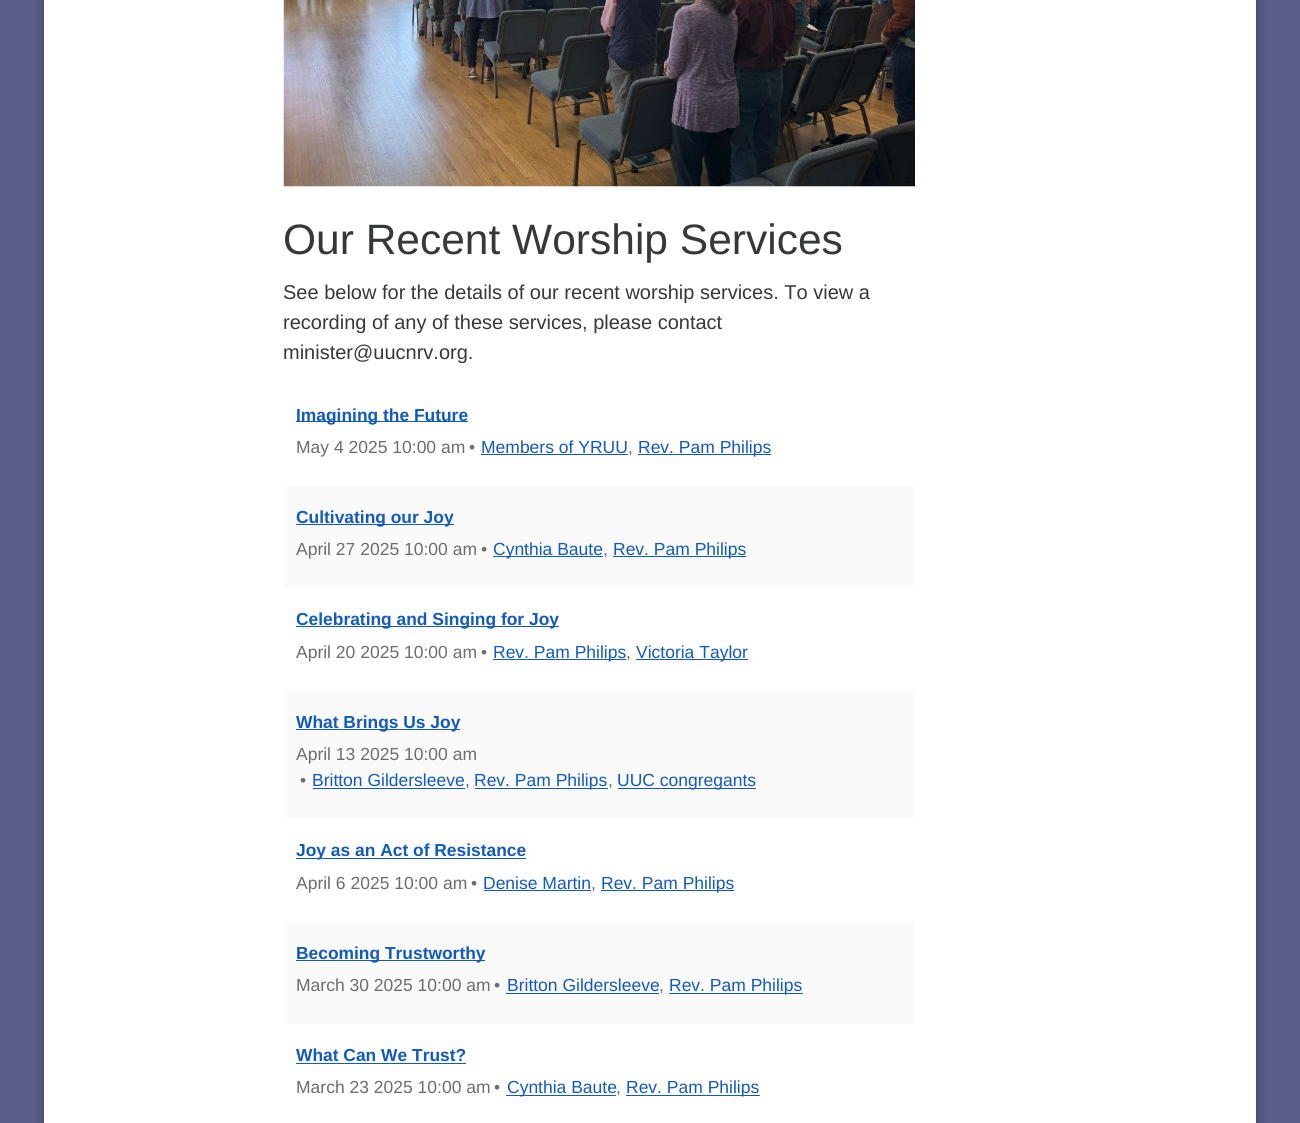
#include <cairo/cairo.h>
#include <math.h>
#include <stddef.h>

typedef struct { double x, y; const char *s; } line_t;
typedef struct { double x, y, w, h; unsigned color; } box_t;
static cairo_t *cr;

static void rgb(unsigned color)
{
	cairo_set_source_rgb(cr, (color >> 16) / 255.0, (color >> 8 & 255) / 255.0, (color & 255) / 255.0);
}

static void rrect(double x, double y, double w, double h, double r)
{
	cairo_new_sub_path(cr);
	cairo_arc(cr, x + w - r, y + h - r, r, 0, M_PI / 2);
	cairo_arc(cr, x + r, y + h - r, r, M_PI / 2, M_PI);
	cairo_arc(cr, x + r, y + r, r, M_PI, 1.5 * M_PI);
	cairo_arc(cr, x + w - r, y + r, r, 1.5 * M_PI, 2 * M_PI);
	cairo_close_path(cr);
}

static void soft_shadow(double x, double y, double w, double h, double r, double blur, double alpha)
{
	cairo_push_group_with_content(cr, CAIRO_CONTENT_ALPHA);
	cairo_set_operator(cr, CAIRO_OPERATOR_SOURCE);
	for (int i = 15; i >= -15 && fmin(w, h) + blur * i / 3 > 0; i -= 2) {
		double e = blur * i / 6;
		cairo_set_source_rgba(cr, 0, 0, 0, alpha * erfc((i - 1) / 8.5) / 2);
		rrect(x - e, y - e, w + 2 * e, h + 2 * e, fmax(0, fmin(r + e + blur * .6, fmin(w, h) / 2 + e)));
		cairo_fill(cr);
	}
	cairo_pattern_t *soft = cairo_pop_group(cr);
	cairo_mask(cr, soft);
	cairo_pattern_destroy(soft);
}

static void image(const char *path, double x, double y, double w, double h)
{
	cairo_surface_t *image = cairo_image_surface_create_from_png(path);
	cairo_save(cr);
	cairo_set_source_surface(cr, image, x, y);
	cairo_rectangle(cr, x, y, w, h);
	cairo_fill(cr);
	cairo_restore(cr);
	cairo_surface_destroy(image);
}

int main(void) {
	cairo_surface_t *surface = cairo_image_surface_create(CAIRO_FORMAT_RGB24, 1300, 1123);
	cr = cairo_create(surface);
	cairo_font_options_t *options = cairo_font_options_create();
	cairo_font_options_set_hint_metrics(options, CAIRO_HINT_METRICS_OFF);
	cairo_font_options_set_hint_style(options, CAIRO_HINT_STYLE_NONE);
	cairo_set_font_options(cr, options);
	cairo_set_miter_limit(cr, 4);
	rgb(0x5b5c8a);
	cairo_paint(cr);
	rgb(0x000000);
	soft_shadow(44, -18, 1212, 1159, 0, 6, 0.3);
	rgb(0xffffff);
	cairo_rectangle(cr, 44, 0, 1212, 1123);
	cairo_fill(cr);
	image("img/1.png", 283, 0, 632, 187);
	{
		static const box_t items[] = {
			{296, 421, 172, 1, 0x125abb},
			{481, 454, 147, 1, 0x125abb},
			{638, 454, 133, 1, 0x125abb},
			{284, 485, 631, 103, 0xfafafa},
			{296, 524, 158, 1, 0x125abb},
			{493, 556, 110, 1, 0x125abb},
			{613, 556, 133, 1, 0x125abb},
			{296, 626, 263, 1, 0x125abb},
			{493, 659, 133, 1, 0x125abb},
			{636, 659, 112, 1, 0x125abb},
			{284, 690, 631, 129, 0xfafafa},
			{296, 729, 164, 1, 0x125abb},
			{313, 788, 152, 1, 0x125abb},
			{475, 788, 133, 1, 0x125abb},
			{618, 788, 138, 1, 0x125abb},
			{296, 858, 230, 1, 0x125abb},
			{484, 890, 107, 1, 0x125abb},
			{601, 890, 133, 1, 0x125abb},
			{284, 921, 631, 103, 0xfafafa},
			{296, 960, 189, 1, 0x125abb},
			{506, 993, 153, 1, 0x125abb},
			{669, 993, 134, 1, 0x125abb},
			{296, 1063, 170, 1, 0x125abb},
			{506, 1095, 110, 1, 0x125abb},
			{626, 1095, 134, 1, 0x125abb},
		};
		for (size_t i = 0; i < sizeof items / sizeof *items; i++) {
			rgb(items[i].color);
			cairo_rectangle(cr, items[i].x, items[i].y, items[i].w, items[i].h);
			cairo_fill(cr);
		}
	}
	cairo_select_font_face(cr, "Liberation Sans", CAIRO_FONT_SLANT_NORMAL, CAIRO_FONT_WEIGHT_NORMAL);
	cairo_set_font_size(cr, 42.5);
	rgb(0x373839);
	cairo_move_to(cr, 283, 254);
	cairo_show_text(cr, "Our Recent Worship Services");
	cairo_set_font_size(cr, 20);
	{
		static const line_t items[] = {
			{283, 299, "See below for the details of our recent worship services. To view a"},
			{283, 329, "recording of any of these services, please contact"},
			{283, 359, "minister@uucnrv.org."},
		};
		for (size_t i = 0; i < sizeof items / sizeof *items; i++) {
			cairo_move_to(cr, items[i].x, items[i].y);
			cairo_show_text(cr, items[i].s);
		}
	}
	cairo_select_font_face(cr, "Liberation Sans", CAIRO_FONT_SLANT_NORMAL, CAIRO_FONT_WEIGHT_BOLD);
	cairo_set_font_size(cr, 17.4);
	rgb(0x125abb);
	cairo_move_to(cr, 296, 421);
	cairo_show_text(cr, "Imagining the Future");
	cairo_select_font_face(cr, "Liberation Sans", CAIRO_FONT_SLANT_NORMAL, CAIRO_FONT_WEIGHT_NORMAL);
	cairo_set_font_size(cr, 17.5);
	rgb(0x6c6d6f);
	cairo_move_to(cr, 296, 453);
	cairo_show_text(cr, "May 4 2025 10:00 am");
	cairo_move_to(cr, 469, 453);
	cairo_show_text(cr, "•");
	rgb(0x125abb);
	cairo_move_to(cr, 481, 453);
	cairo_show_text(cr, "Members of YRUU");
	cairo_move_to(cr, 638, 453);
	cairo_show_text(cr, "Rev. Pam Philips");
	rgb(0x6c6d6f);
	cairo_move_to(cr, 628, 453);
	cairo_show_text(cr, ",");
	cairo_select_font_face(cr, "Liberation Sans", CAIRO_FONT_SLANT_NORMAL, CAIRO_FONT_WEIGHT_BOLD);
	cairo_set_font_size(cr, 17.4);
	rgb(0x125abb);
	cairo_move_to(cr, 296, 523);
	cairo_show_text(cr, "Cultivating our Joy");
	cairo_select_font_face(cr, "Liberation Sans", CAIRO_FONT_SLANT_NORMAL, CAIRO_FONT_WEIGHT_NORMAL);
	cairo_set_font_size(cr, 17.5);
	rgb(0x6c6d6f);
	cairo_move_to(cr, 296, 555);
	cairo_show_text(cr, "April 27 2025 10:00 am");
	cairo_move_to(cr, 481, 555);
	cairo_show_text(cr, "•");
	rgb(0x125abb);
	cairo_move_to(cr, 493, 555);
	cairo_show_text(cr, "Cynthia Baute");
	cairo_move_to(cr, 613, 555);
	cairo_show_text(cr, "Rev. Pam Philips");
	rgb(0x6c6d6f);
	cairo_move_to(cr, 603, 555);
	cairo_show_text(cr, ",");
	cairo_select_font_face(cr, "Liberation Sans", CAIRO_FONT_SLANT_NORMAL, CAIRO_FONT_WEIGHT_BOLD);
	cairo_set_font_size(cr, 17.4);
	rgb(0x125abb);
	cairo_move_to(cr, 296, 625);
	cairo_show_text(cr, "Celebrating and Singing for Joy");
	cairo_select_font_face(cr, "Liberation Sans", CAIRO_FONT_SLANT_NORMAL, CAIRO_FONT_WEIGHT_NORMAL);
	cairo_set_font_size(cr, 17.5);
	rgb(0x6c6d6f);
	cairo_move_to(cr, 296, 658);
	cairo_show_text(cr, "April 20 2025 10:00 am");
	cairo_move_to(cr, 481, 658);
	cairo_show_text(cr, "•");
	rgb(0x125abb);
	cairo_move_to(cr, 493, 658);
	cairo_show_text(cr, "Rev. Pam Philips");
	cairo_move_to(cr, 636, 658);
	cairo_show_text(cr, "Victoria Taylor");
	rgb(0x6c6d6f);
	cairo_move_to(cr, 626, 658);
	cairo_show_text(cr, ",");
	cairo_select_font_face(cr, "Liberation Sans", CAIRO_FONT_SLANT_NORMAL, CAIRO_FONT_WEIGHT_BOLD);
	cairo_set_font_size(cr, 17.4);
	rgb(0x125abb);
	cairo_move_to(cr, 296, 728);
	cairo_show_text(cr, "What Brings Us Joy");
	cairo_select_font_face(cr, "Liberation Sans", CAIRO_FONT_SLANT_NORMAL, CAIRO_FONT_WEIGHT_NORMAL);
	cairo_set_font_size(cr, 17.5);
	rgb(0x6c6d6f);
	cairo_move_to(cr, 296, 760);
	cairo_show_text(cr, "April 13 2025 10:00 am");
	cairo_move_to(cr, 300, 786);
	cairo_show_text(cr, "•");
	rgb(0x125abb);
	{
		static const line_t items[] = {
			{312, 786, "Britton Gildersleeve"},
			{474, 786, "Rev. Pam Philips"},
			{617, 786, "UUC congregants"},
		};
		for (size_t i = 0; i < sizeof items / sizeof *items; i++) {
			cairo_move_to(cr, items[i].x, items[i].y);
			cairo_show_text(cr, items[i].s);
		}
	}
	rgb(0x6c6d6f);
	cairo_move_to(cr, 465, 786);
	cairo_show_text(cr, ",");
	cairo_move_to(cr, 608, 786);
	cairo_show_text(cr, ",");
	cairo_select_font_face(cr, "Liberation Sans", CAIRO_FONT_SLANT_NORMAL, CAIRO_FONT_WEIGHT_BOLD);
	cairo_set_font_size(cr, 17.4);
	rgb(0x125abb);
	cairo_move_to(cr, 296, 856);
	cairo_show_text(cr, "Joy as an Act of Resistance");
	cairo_select_font_face(cr, "Liberation Sans", CAIRO_FONT_SLANT_NORMAL, CAIRO_FONT_WEIGHT_NORMAL);
	cairo_set_font_size(cr, 17.5);
	rgb(0x6c6d6f);
	cairo_move_to(cr, 296, 889);
	cairo_show_text(cr, "April 6 2025 10:00 am");
	cairo_move_to(cr, 471, 889);
	cairo_show_text(cr, "•");
	rgb(0x125abb);
	cairo_move_to(cr, 483, 889);
	cairo_show_text(cr, "Denise Martin");
	cairo_move_to(cr, 601, 889);
	cairo_show_text(cr, "Rev. Pam Philips");
	rgb(0x6c6d6f);
	cairo_move_to(cr, 591, 889);
	cairo_show_text(cr, ",");
	cairo_select_font_face(cr, "Liberation Sans", CAIRO_FONT_SLANT_NORMAL, CAIRO_FONT_WEIGHT_BOLD);
	cairo_set_font_size(cr, 17.4);
	rgb(0x125abb);
	cairo_move_to(cr, 296, 959);
	cairo_show_text(cr, "Becoming Trustworthy");
	cairo_select_font_face(cr, "Liberation Sans", CAIRO_FONT_SLANT_NORMAL, CAIRO_FONT_WEIGHT_NORMAL);
	cairo_set_font_size(cr, 17.5);
	rgb(0x6c6d6f);
	cairo_move_to(cr, 296, 991);
	cairo_show_text(cr, "March 30 2025 10:00 am");
	cairo_move_to(cr, 494, 991);
	cairo_show_text(cr, "•");
	rgb(0x125abb);
	cairo_move_to(cr, 507, 991);
	cairo_show_text(cr, "Britton Gildersleeve");
	cairo_move_to(cr, 669, 991);
	cairo_show_text(cr, "Rev. Pam Philips");
	rgb(0x6c6d6f);
	cairo_move_to(cr, 659, 991);
	cairo_show_text(cr, ",");
	cairo_select_font_face(cr, "Liberation Sans", CAIRO_FONT_SLANT_NORMAL, CAIRO_FONT_WEIGHT_BOLD);
	cairo_set_font_size(cr, 17.4);
	rgb(0x125abb);
	cairo_move_to(cr, 296, 1061);
	cairo_show_text(cr, "What Can We Trust?");
	cairo_select_font_face(cr, "Liberation Sans", CAIRO_FONT_SLANT_NORMAL, CAIRO_FONT_WEIGHT_NORMAL);
	cairo_set_font_size(cr, 17.5);
	rgb(0x6c6d6f);
	cairo_move_to(cr, 296, 1093);
	cairo_show_text(cr, "March 23 2025 10:00 am");
	cairo_move_to(cr, 494, 1093);
	cairo_show_text(cr, "•");
	rgb(0x125abb);
	cairo_move_to(cr, 507, 1093);
	cairo_show_text(cr, "Cynthia Baute");
	cairo_move_to(cr, 626, 1093);
	cairo_show_text(cr, "Rev. Pam Philips");
	rgb(0x6c6d6f);
	cairo_move_to(cr, 616, 1093);
	cairo_show_text(cr, ",");
	cairo_surface_write_to_png(surface, "page.png");
	cairo_font_options_destroy(options);
	cairo_destroy(cr);
	cairo_surface_destroy(surface);
	return 0;
}
